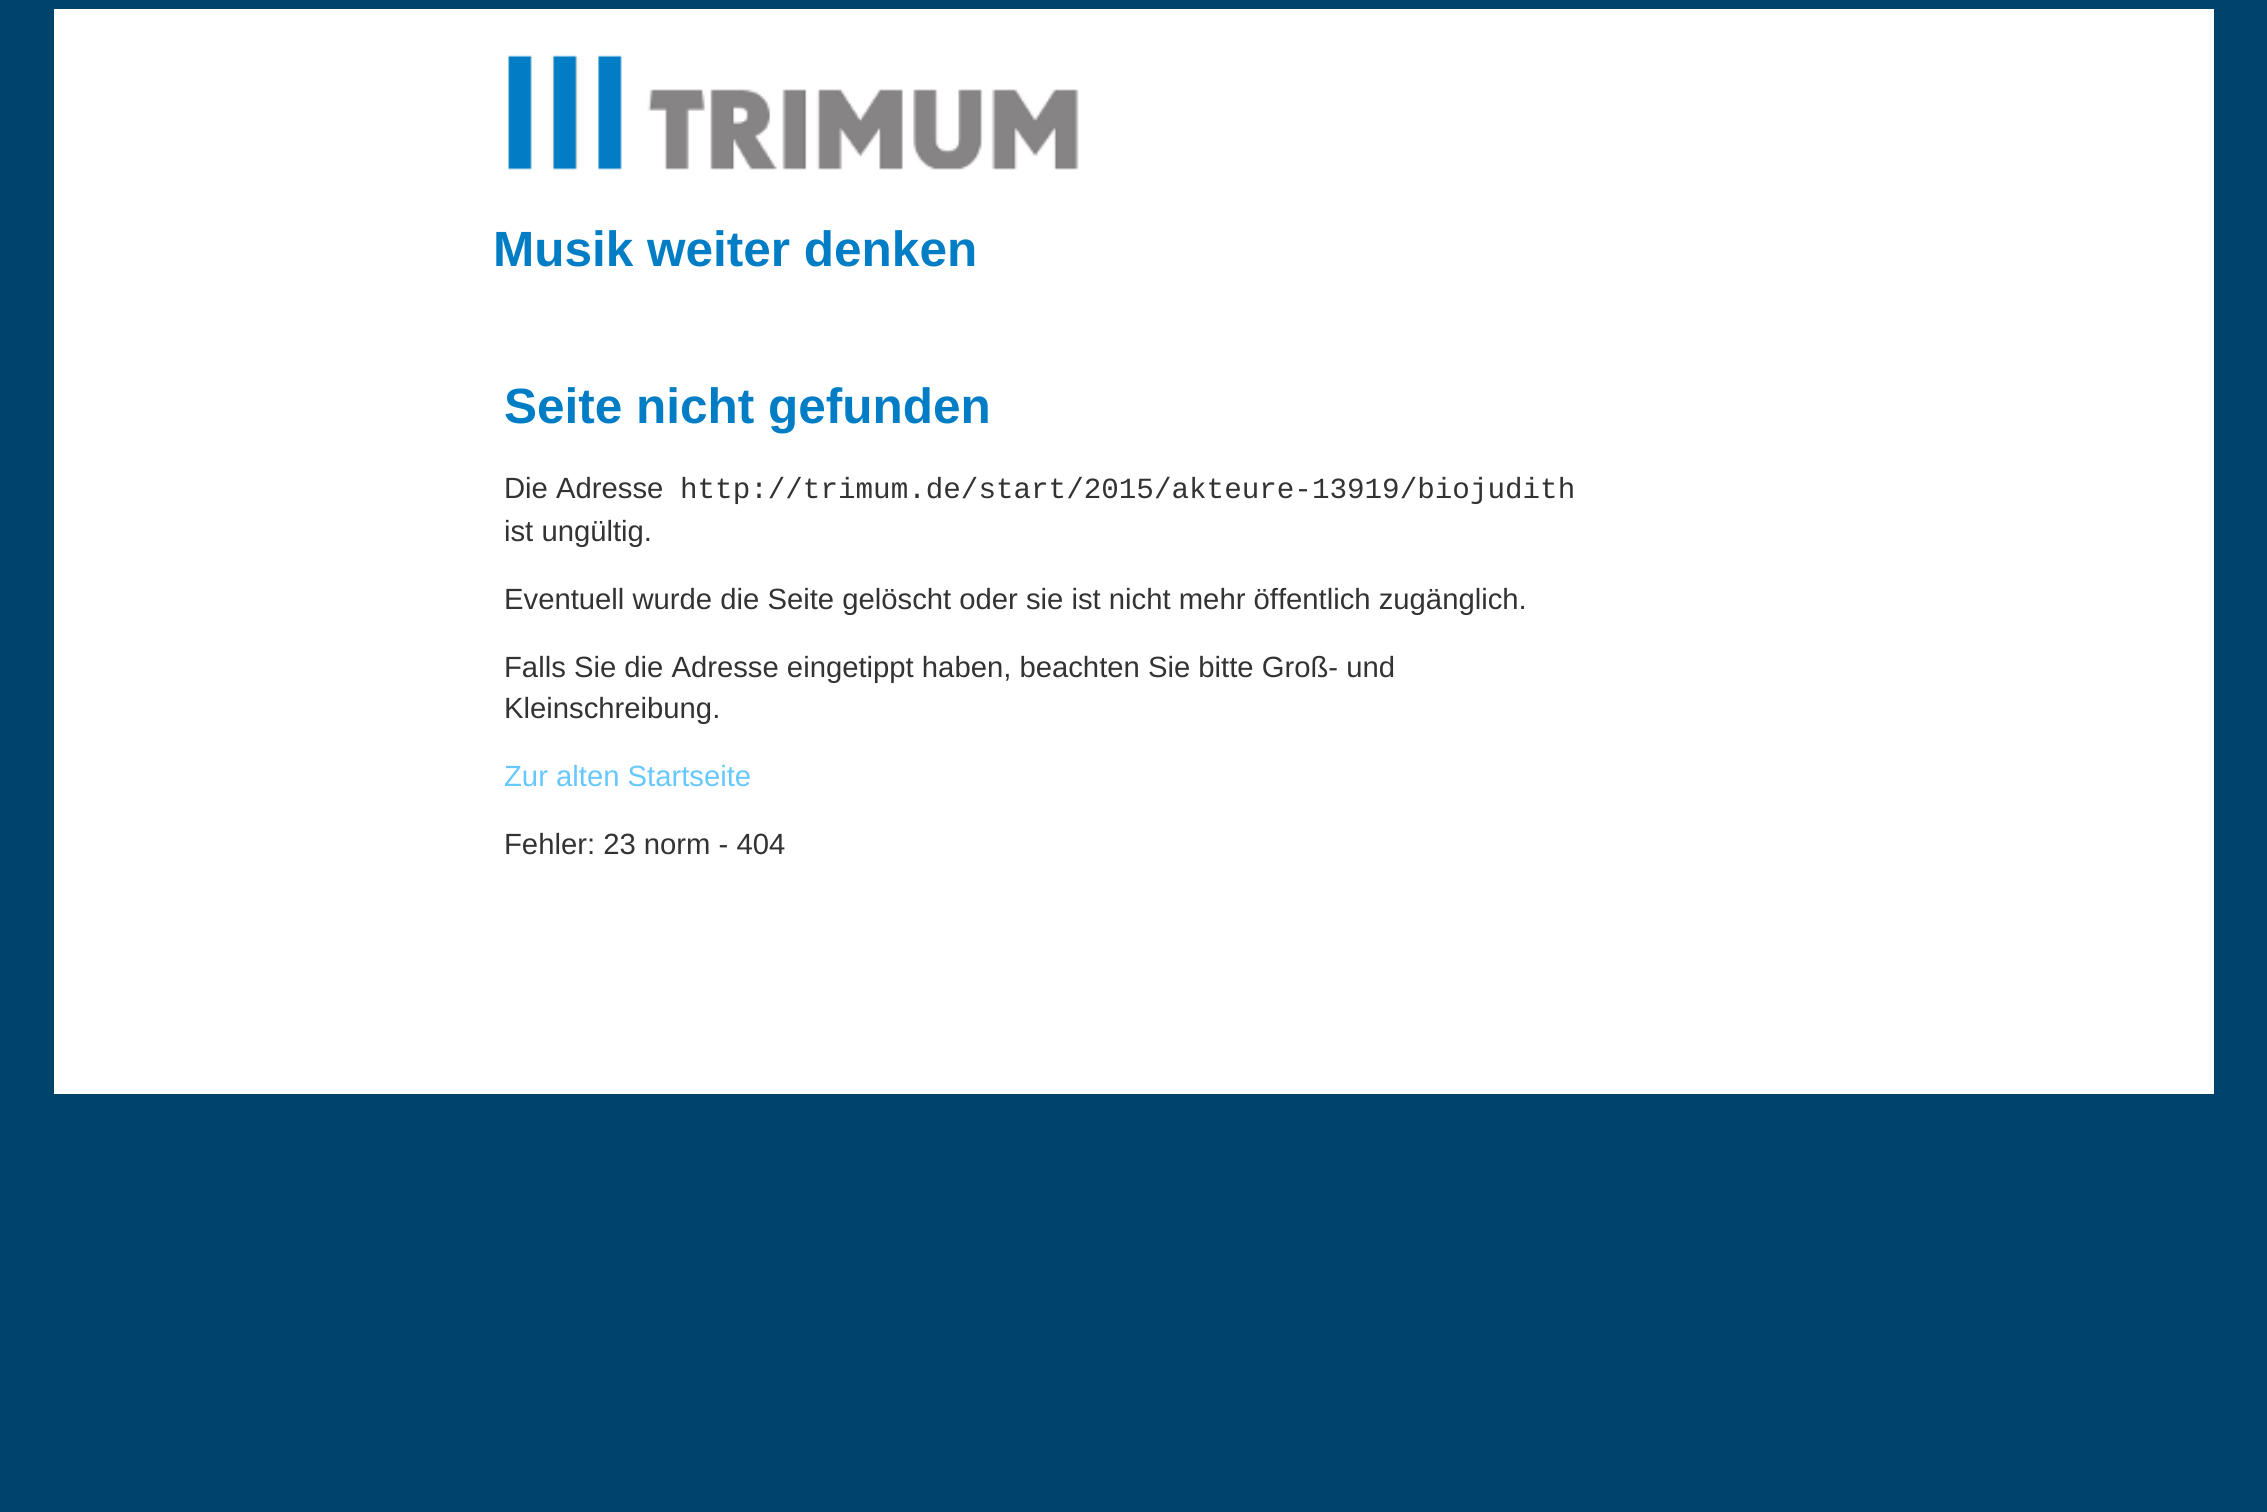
#include <cairo/cairo.h>
#include <math.h>
#include <stddef.h>

typedef struct { double x, y; const char *s; } line_t;
static cairo_t *cr;

static void rgb(unsigned color)
{
	cairo_set_source_rgb(cr, (color >> 16) / 255.0, (color >> 8 & 255) / 255.0, (color & 255) / 255.0);
}

static void image(const char *path, double x, double y, double w, double h)
{
	cairo_surface_t *image = cairo_image_surface_create_from_png(path);
	cairo_save(cr);
	cairo_set_source_surface(cr, image, x, y);
	cairo_rectangle(cr, x, y, w, h);
	cairo_fill(cr);
	cairo_restore(cr);
	cairo_surface_destroy(image);
}

int main(void) {
	cairo_surface_t *surface = cairo_image_surface_create(CAIRO_FORMAT_RGB24, 2267, 1512);
	cr = cairo_create(surface);
	cairo_font_options_t *options = cairo_font_options_create();
	cairo_font_options_set_hint_metrics(options, CAIRO_HINT_METRICS_OFF);
	cairo_font_options_set_hint_style(options, CAIRO_HINT_STYLE_NONE);
	cairo_set_font_options(cr, options);
	cairo_set_miter_limit(cr, 4);
	rgb(0x00446b);
	cairo_paint(cr);
	rgb(0xffffff);
	cairo_rectangle(cr, 54, 9, 2160, 1085);
	cairo_fill(cr);
	image("img/1.png", 508, 55, 571, 115);
	cairo_select_font_face(cr, "Liberation Sans", CAIRO_FONT_SLANT_NORMAL, CAIRO_FONT_WEIGHT_BOLD);
	cairo_set_font_size(cr, 49.5);
	rgb(0x007dc4);
	cairo_move_to(cr, 493, 266);
	cairo_show_text(cr, "Musik weiter denken");
	cairo_move_to(cr, 504, 423);
	cairo_show_text(cr, "Seite nicht gefunden");
	cairo_select_font_face(cr, "Liberation Sans", CAIRO_FONT_SLANT_NORMAL, CAIRO_FONT_WEIGHT_NORMAL);
	cairo_set_font_size(cr, 29.25);
	rgb(0x333333);
	cairo_move_to(cr, 504, 498);
	cairo_show_text(cr, "Die Adresse");
	cairo_select_font_face(cr, "Liberation Mono", CAIRO_FONT_SLANT_NORMAL, CAIRO_FONT_WEIGHT_NORMAL);
	cairo_move_to(cr, 680, 498);
	cairo_show_text(cr, "http://trimum.de/start/2015/akteure-13919/biojudith");
	cairo_select_font_face(cr, "Liberation Sans", CAIRO_FONT_SLANT_NORMAL, CAIRO_FONT_WEIGHT_NORMAL);
	{
		static const line_t items[] = {
			{504, 541, "ist ungültig."},
			{504, 609, "Eventuell wurde die Seite gelöscht oder sie ist nicht mehr öffentlich zugänglich."},
			{504, 677, "Falls Sie die Adresse eingetippt haben, beachten Sie bitte Groß- und"},
			{504, 718, "Kleinschreibung."},
		};
		for (size_t i = 0; i < sizeof items / sizeof *items; i++) {
			cairo_move_to(cr, items[i].x, items[i].y);
			cairo_show_text(cr, items[i].s);
		}
	}
	rgb(0x66c8ff);
	cairo_move_to(cr, 504, 786);
	cairo_show_text(cr, "Zur alten Startseite");
	rgb(0x333333);
	cairo_move_to(cr, 504, 854);
	cairo_show_text(cr, "Fehler: 23 norm - 404");
	cairo_surface_write_to_png(surface, "page.png");
	cairo_font_options_destroy(options);
	cairo_destroy(cr);
	cairo_surface_destroy(surface);
	return 0;
}
